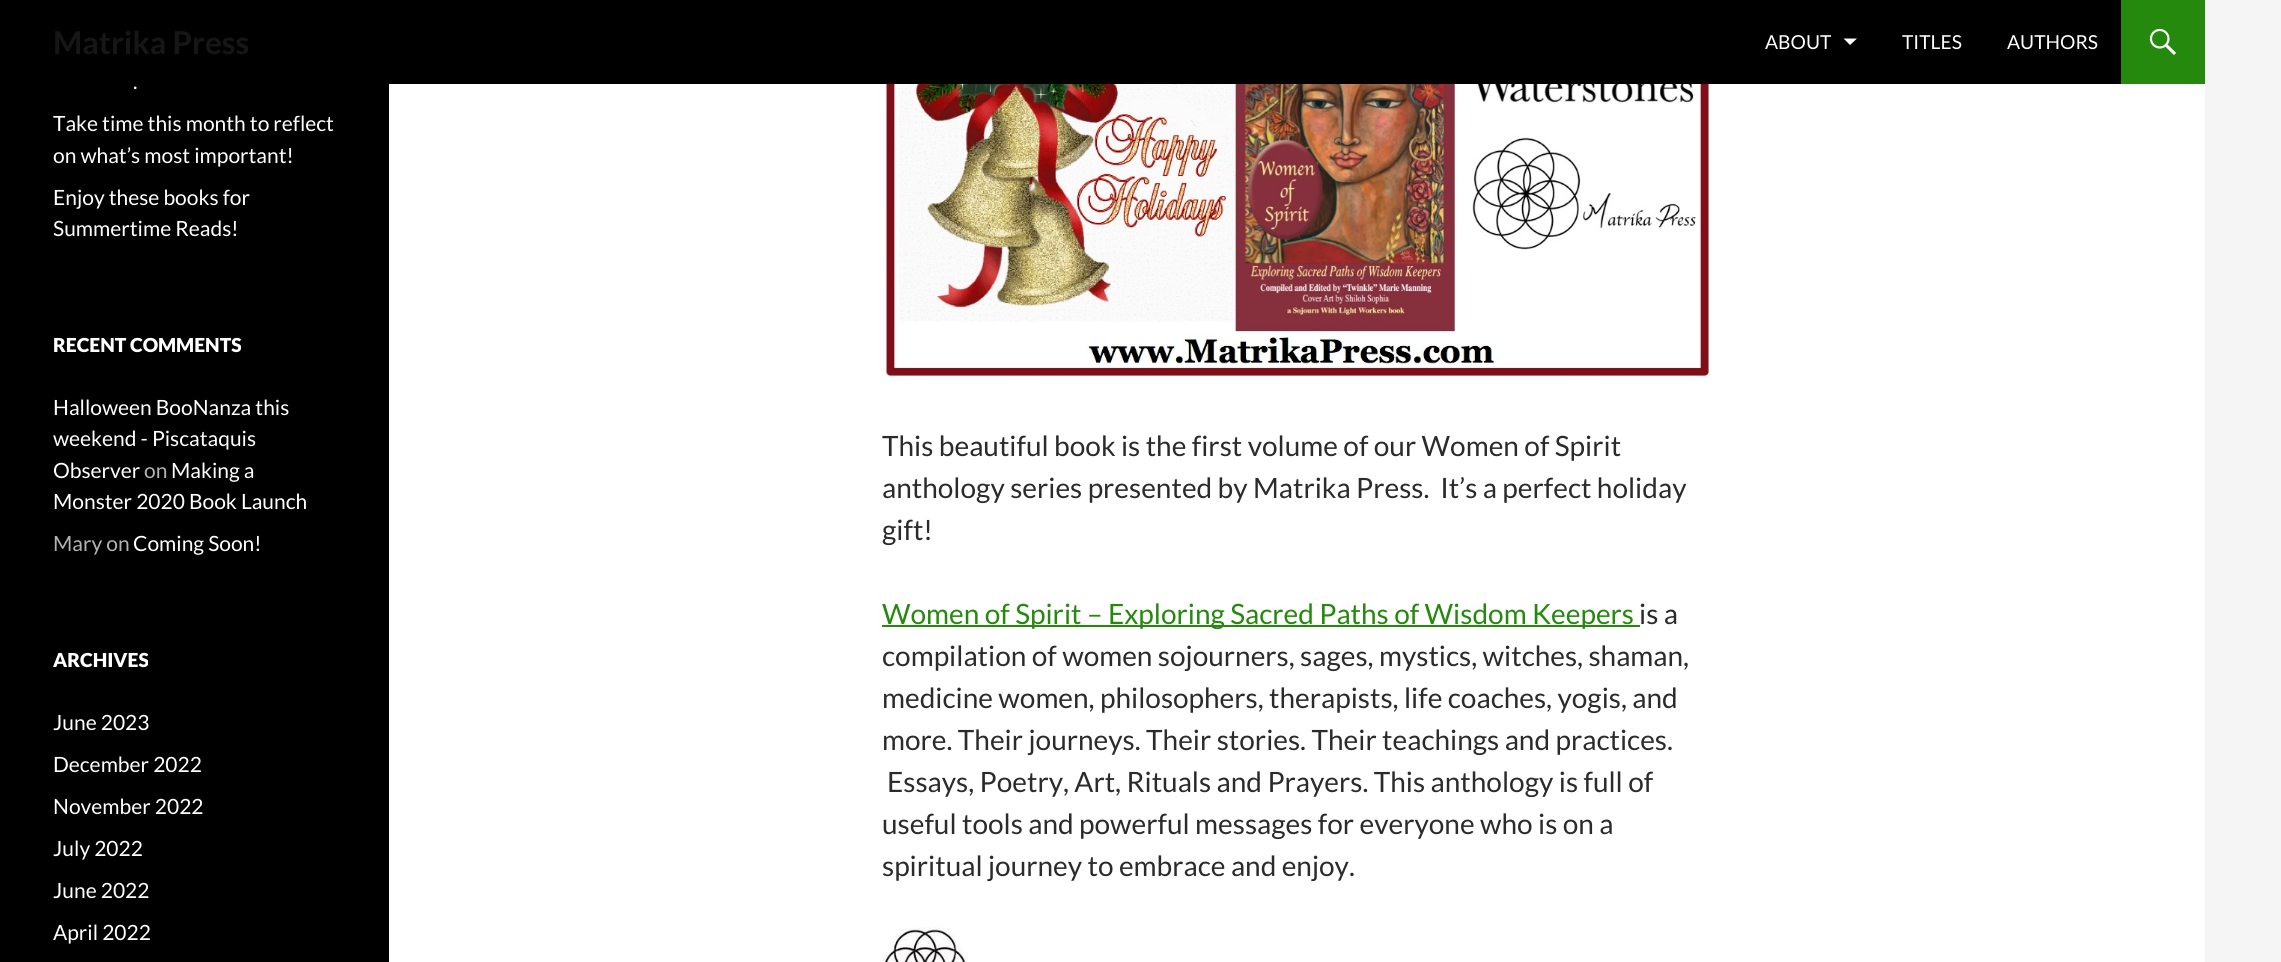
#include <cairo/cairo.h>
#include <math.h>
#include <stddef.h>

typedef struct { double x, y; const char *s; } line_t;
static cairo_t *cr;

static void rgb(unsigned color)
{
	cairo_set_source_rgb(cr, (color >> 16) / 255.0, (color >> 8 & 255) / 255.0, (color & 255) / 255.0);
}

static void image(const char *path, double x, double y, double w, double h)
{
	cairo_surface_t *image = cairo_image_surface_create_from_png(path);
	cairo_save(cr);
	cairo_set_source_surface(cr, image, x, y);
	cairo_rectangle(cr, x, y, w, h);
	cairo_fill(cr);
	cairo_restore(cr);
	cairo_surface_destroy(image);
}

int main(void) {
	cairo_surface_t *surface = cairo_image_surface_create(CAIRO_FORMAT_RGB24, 2281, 962);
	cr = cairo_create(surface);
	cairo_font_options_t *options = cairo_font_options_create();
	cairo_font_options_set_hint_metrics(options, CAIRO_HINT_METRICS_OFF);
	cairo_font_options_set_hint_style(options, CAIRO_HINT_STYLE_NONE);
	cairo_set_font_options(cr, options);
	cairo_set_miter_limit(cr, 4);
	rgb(0xf5f5f5);
	cairo_paint(cr);
	rgb(0xffffff);
	cairo_rectangle(cr, 389, 84, 1816, 878);
	cairo_fill(cr);
	rgb(0x000000);
	cairo_rectangle(cr, 0, 0, 2121, 84);
	cairo_fill(cr);
	rgb(0xffffff);
	cairo_new_path(cr);
	cairo_move_to(cr, 1843.5, 38.5);
	cairo_line_to(cr, 1850, 45);
	cairo_line_to(cr, 1857, 38.5);
	cairo_close_path(cr);
	cairo_fill(cr);
	rgb(0x24890d);
	cairo_rectangle(cr, 2121, 0, 84, 84);
	cairo_fill(cr);
	image("img/1.png", 2149, 28, 27, 27);
	rgb(0x000000);
	cairo_rectangle(cr, 0, 84, 389, 878);
	cairo_fill(cr);
	image("img/2.png", 882, 84, 827, 296);
	rgb(0x24890d);
	cairo_rectangle(cr, 882, 625, 758, 2);
	cairo_fill(cr);
	image("img/3.png", 882, 927, 86, 35);
	cairo_select_font_face(cr, "Lato", CAIRO_FONT_SLANT_NORMAL, CAIRO_FONT_WEIGHT_BOLD);
	cairo_set_font_size(cr, 31.5);
	rgb(0x161616);
	cairo_move_to(cr, 53, 54);
	cairo_show_text(cr, "Matrika Press");
	cairo_select_font_face(cr, "Lato", CAIRO_FONT_SLANT_NORMAL, CAIRO_FONT_WEIGHT_NORMAL);
	cairo_set_font_size(cr, 19.25);
	rgb(0xffffff);
	{
		static const line_t items[] = {
			{1765, 49, "ABOUT"},
			{1902, 49, "TITLES"},
			{2007, 49, "AUTHORS"},
		};
		for (size_t i = 0; i < sizeof items / sizeof *items; i++) {
			cairo_move_to(cr, items[i].x, items[i].y);
			cairo_show_text(cr, items[i].s);
		}
	}
	cairo_set_font_size(cr, 21);
	{
		static const line_t items[] = {
			{133, 89, "."},
			{53, 131, "Take time this month to reflect"},
			{53, 163, "on what’s most important!"},
			{53, 205, "Enjoy these books for"},
			{53, 236, "Summertime Reads!"},
		};
		for (size_t i = 0; i < sizeof items / sizeof *items; i++) {
			cairo_move_to(cr, items[i].x, items[i].y);
			cairo_show_text(cr, items[i].s);
		}
	}
	cairo_select_font_face(cr, "Lato Black", CAIRO_FONT_SLANT_NORMAL, CAIRO_FONT_WEIGHT_NORMAL);
	cairo_set_font_size(cr, 19.25);
	cairo_move_to(cr, 53, 352);
	cairo_show_text(cr, "RECENT COMMENTS");
	cairo_select_font_face(cr, "Lato", CAIRO_FONT_SLANT_NORMAL, CAIRO_FONT_WEIGHT_NORMAL);
	cairo_set_font_size(cr, 21);
	{
		static const line_t items[] = {
			{53, 415, "Halloween BooNanza this"},
			{53, 446, "weekend - Piscataquis"},
			{53, 478, "Observer"},
		};
		for (size_t i = 0; i < sizeof items / sizeof *items; i++) {
			cairo_move_to(cr, items[i].x, items[i].y);
			cairo_show_text(cr, items[i].s);
		}
	}
	rgb(0xb3b3b3);
	cairo_move_to(cr, 144, 478);
	cairo_show_text(cr, "on");
	rgb(0xffffff);
	cairo_move_to(cr, 171, 478);
	cairo_show_text(cr, "Making a");
	cairo_move_to(cr, 53, 509);
	cairo_show_text(cr, "Monster 2020 Book Launch");
	rgb(0xb3b3b3);
	cairo_move_to(cr, 53, 551);
	cairo_show_text(cr, "Mary on");
	rgb(0xffffff);
	cairo_move_to(cr, 133, 551);
	cairo_show_text(cr, "Coming Soon!");
	cairo_select_font_face(cr, "Lato Black", CAIRO_FONT_SLANT_NORMAL, CAIRO_FONT_WEIGHT_NORMAL);
	cairo_set_font_size(cr, 19.25);
	cairo_move_to(cr, 53, 667);
	cairo_show_text(cr, "ARCHIVES");
	cairo_select_font_face(cr, "Lato", CAIRO_FONT_SLANT_NORMAL, CAIRO_FONT_WEIGHT_NORMAL);
	cairo_set_font_size(cr, 21);
	{
		static const line_t items[] = {
			{53, 730, "June 2023"},
			{53, 772, "December 2022"},
			{53, 814, "November 2022"},
			{53, 856, "July 2022"},
			{53, 898, "June 2022"},
			{53, 940, "April 2022"},
		};
		for (size_t i = 0; i < sizeof items / sizeof *items; i++) {
			cairo_move_to(cr, items[i].x, items[i].y);
			cairo_show_text(cr, items[i].s);
		}
	}
	cairo_set_font_size(cr, 28);
	rgb(0x2b2b2b);
	{
		static const line_t items[] = {
			{882, 456, "This beautiful book is the first volume of our Women of Spirit"},
			{882, 498, "anthology series presented by Matrika Press.  It’s a perfect holiday"},
			{882, 540, "gift!"},
		};
		for (size_t i = 0; i < sizeof items / sizeof *items; i++) {
			cairo_move_to(cr, items[i].x, items[i].y);
			cairo_show_text(cr, items[i].s);
		}
	}
	rgb(0x24890d);
	cairo_move_to(cr, 882, 624);
	cairo_show_text(cr, "Women of Spirit – Exploring Sacred Paths of Wisdom Keepers");
	rgb(0x2b2b2b);
	{
		static const line_t items[] = {
			{1639, 624, "is a"},
			{882, 666, "compilation of women sojourners, sages, mystics, witches, shaman,"},
			{882, 708, "medicine women, philosophers, therapists, life coaches, yogis, and"},
			{882, 750, "more. Their journeys. Their stories. Their teachings and practices."},
			{887, 792, "Essays, Poetry, Art, Rituals and Prayers. This anthology is full of"},
			{882, 834, "useful tools and powerful messages for everyone who is on a"},
			{882, 876, "spiritual journey to embrace and enjoy."},
		};
		for (size_t i = 0; i < sizeof items / sizeof *items; i++) {
			cairo_move_to(cr, items[i].x, items[i].y);
			cairo_show_text(cr, items[i].s);
		}
	}
	cairo_surface_write_to_png(surface, "page.png");
	cairo_font_options_destroy(options);
	cairo_destroy(cr);
	cairo_surface_destroy(surface);
	return 0;
}
